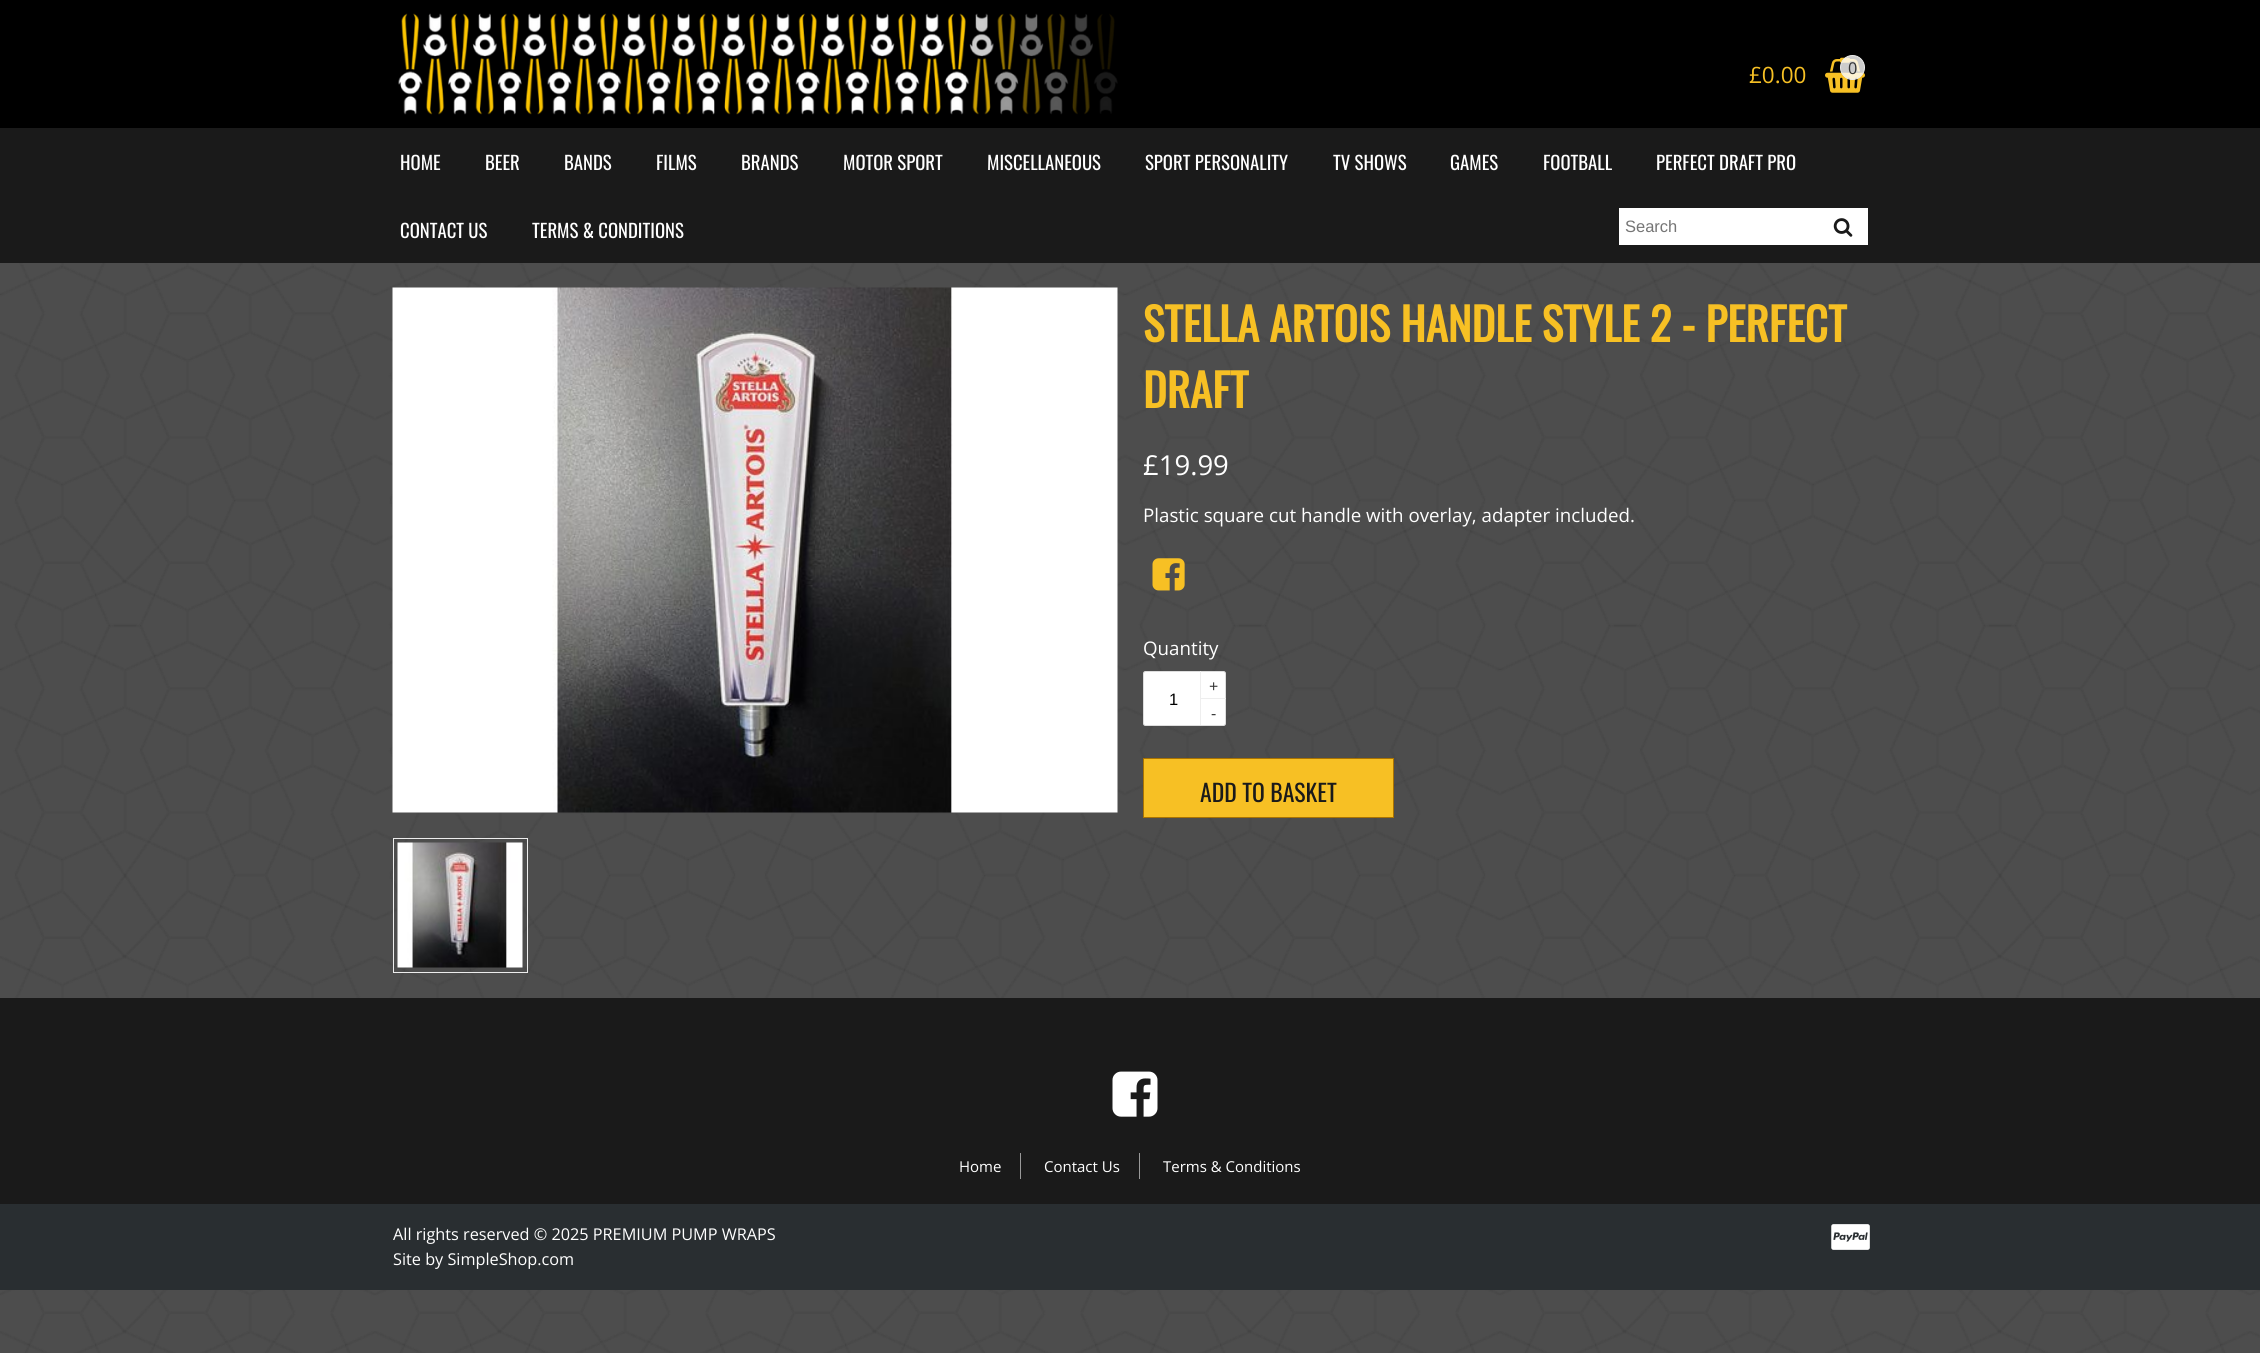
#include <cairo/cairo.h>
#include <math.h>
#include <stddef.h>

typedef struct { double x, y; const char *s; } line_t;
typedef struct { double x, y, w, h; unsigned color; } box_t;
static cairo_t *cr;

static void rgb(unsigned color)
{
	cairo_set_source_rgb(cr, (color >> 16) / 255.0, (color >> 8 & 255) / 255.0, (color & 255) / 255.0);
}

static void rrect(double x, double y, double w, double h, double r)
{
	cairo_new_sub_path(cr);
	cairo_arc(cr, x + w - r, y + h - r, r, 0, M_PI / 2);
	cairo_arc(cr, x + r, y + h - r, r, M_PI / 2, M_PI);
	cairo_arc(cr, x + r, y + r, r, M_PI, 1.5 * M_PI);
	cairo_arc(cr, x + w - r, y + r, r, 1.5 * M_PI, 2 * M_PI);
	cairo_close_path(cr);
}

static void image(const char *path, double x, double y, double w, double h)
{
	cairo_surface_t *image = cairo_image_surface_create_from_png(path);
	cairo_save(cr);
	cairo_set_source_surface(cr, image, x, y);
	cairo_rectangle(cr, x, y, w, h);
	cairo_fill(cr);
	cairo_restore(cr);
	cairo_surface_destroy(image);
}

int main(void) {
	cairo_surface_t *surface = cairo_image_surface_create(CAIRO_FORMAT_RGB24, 2260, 1353);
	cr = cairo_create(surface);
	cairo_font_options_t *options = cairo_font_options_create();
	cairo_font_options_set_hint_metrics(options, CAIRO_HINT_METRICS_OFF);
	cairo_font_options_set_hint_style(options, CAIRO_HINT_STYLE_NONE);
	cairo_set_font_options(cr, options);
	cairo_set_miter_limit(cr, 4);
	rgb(0x4d4d4d);
	cairo_paint(cr);
	image("img/1.png", 0, 263, 2260, 1090);
	rgb(0x000000);
	cairo_rectangle(cr, 0, 0, 2260, 128);
	cairo_fill(cr);
	image("img/2.png", 398, 13, 720, 102);
	image("img/3.png", 1825, 57, 40, 36);
	cairo_set_source_rgba(cr, 1, 1, 1, 0.8);
	cairo_arc(cr, 1852.5, 67.5, 12, 0, 2 * M_PI);
	cairo_fill_preserve(cr);
	rgb(0xededed);
	cairo_set_line_width(cr, 1);
	cairo_stroke(cr);
	rgb(0x1a1a1a);
	cairo_rectangle(cr, 0, 128, 2260, 135);
	cairo_fill(cr);
	rgb(0xffffff);
	cairo_rectangle(cr, 1619, 208, 249, 37);
	cairo_fill(cr);
	image("img/4.png", 1833, 218, 20, 19);
	image("img/5.png", 392, 287, 726, 526);
	cairo_rectangle(cr, 393.5, 838.5, 134, 134);
	rgb(0xededed);
	cairo_stroke(cr);
	image("img/6.png", 397, 842, 126, 126);
	image("img/7.png", 1152, 558, 33, 33);
	rgb(0xffffff);
	rrect(1143.5, 671.5, 82, 54, 2);
	cairo_fill_preserve(cr);
	rgb(0xdddddd);
	cairo_stroke(cr);
	rgb(0xeeeeee);
	cairo_rectangle(cr, 1200, 698, 26, 1);
	cairo_fill(cr);
	cairo_rectangle(cr, 1200, 671, 1, 54);
	cairo_fill(cr);
	rgb(0xf7c024);
	cairo_rectangle(cr, 1143.5, 758.5, 250, 59);
	cairo_fill_preserve(cr);
	rgb(0xaa7300);
	cairo_stroke(cr);
	rgb(0x1a1a1a);
	cairo_rectangle(cr, 0, 998, 2260, 206);
	cairo_fill(cr);
	image("img/8.png", 1112, 1071, 46, 46);
	{
		static const box_t items[] = {
			{1020, 1153, 1, 26, 0x999999},
			{1139, 1153, 1, 26, 0x999999},
			{0, 1204, 2260, 86, 0x292e31},
		};
		for (size_t i = 0; i < sizeof items / sizeof *items; i++) {
			rgb(items[i].color);
			cairo_rectangle(cr, items[i].x, items[i].y, items[i].w, items[i].h);
			cairo_fill(cr);
		}
	}
	image("img/9.png", 1831, 1224, 39, 26);
	cairo_select_font_face(cr, "Open Sans", CAIRO_FONT_SLANT_NORMAL, CAIRO_FONT_WEIGHT_NORMAL);
	cairo_set_font_size(cr, 22.5);
	rgb(0xf7c024);
	cairo_move_to(cr, 1749, 83);
	cairo_show_text(cr, "£0.00");
	cairo_set_font_size(cr, 16.25);
	rgb(0x333333);
	cairo_move_to(cr, 1848, 74);
	cairo_show_text(cr, "0");
	cairo_select_font_face(cr, "Oswald", CAIRO_FONT_SLANT_NORMAL, CAIRO_FONT_WEIGHT_NORMAL);
	cairo_set_font_size(cr, 18.75);
	rgb(0xffffff);
	{
		static const line_t items[] = {
			{400, 170, "HOME"},
			{485, 170, "BEER"},
			{564, 170, "BANDS"},
			{656, 170, "FILMS"},
			{741, 170, "BRANDS"},
			{843, 170, "MOTOR SPORT"},
			{987, 170, "MISCELLANEOUS"},
			{1145, 170, "SPORT PERSONALITY"},
			{1333, 170, "TV SHOWS"},
			{1450, 170, "GAMES"},
			{1543, 170, "FOOTBALL"},
			{1656, 170, "PERFECT DRAFT PRO"},
			{400, 238, "CONTACT US"},
			{532, 238, "TERMS & CONDITIONS"},
		};
		for (size_t i = 0; i < sizeof items / sizeof *items; i++) {
			cairo_move_to(cr, items[i].x, items[i].y);
			cairo_show_text(cr, items[i].s);
		}
	}
	cairo_select_font_face(cr, "Liberation Sans", CAIRO_FONT_SLANT_NORMAL, CAIRO_FONT_WEIGHT_NORMAL);
	cairo_set_font_size(cr, 16.5);
	rgb(0x757575);
	cairo_move_to(cr, 1625, 232);
	cairo_show_text(cr, "Search");
	cairo_select_font_face(cr, "Oswald", CAIRO_FONT_SLANT_NORMAL, CAIRO_FONT_WEIGHT_BOLD);
	cairo_set_font_size(cr, 45);
	rgb(0xf7c024);
	cairo_move_to(cr, 1143, 342);
	cairo_show_text(cr, "STELLA ARTOIS HANDLE STYLE 2 - PERFECT");
	cairo_move_to(cr, 1143, 408);
	cairo_show_text(cr, "DRAFT");
	cairo_select_font_face(cr, "Open Sans", CAIRO_FONT_SLANT_NORMAL, CAIRO_FONT_WEIGHT_NORMAL);
	cairo_set_font_size(cr, 27.5);
	rgb(0xffffff);
	cairo_move_to(cr, 1143, 475);
	cairo_show_text(cr, "£19.99");
	cairo_set_font_size(cr, 18.75);
	cairo_move_to(cr, 1143, 522);
	cairo_show_text(cr, "Plastic square cut handle with overlay, adapter included.");
	cairo_move_to(cr, 1143, 655);
	cairo_show_text(cr, "Quantity");
	cairo_select_font_face(cr, "Liberation Sans", CAIRO_FONT_SLANT_NORMAL, CAIRO_FONT_WEIGHT_NORMAL);
	cairo_set_font_size(cr, 16.5);
	rgb(0x000000);
	cairo_move_to(cr, 1169, 705);
	cairo_show_text(cr, "1");
	cairo_select_font_face(cr, "Open Sans", CAIRO_FONT_SLANT_NORMAL, CAIRO_FONT_WEIGHT_NORMAL);
	cairo_set_font_size(cr, 16.25);
	rgb(0x333333);
	cairo_move_to(cr, 1209, 692);
	cairo_show_text(cr, "+");
	cairo_move_to(cr, 1211, 719);
	cairo_show_text(cr, "-");
	cairo_select_font_face(cr, "Oswald", CAIRO_FONT_SLANT_NORMAL, CAIRO_FONT_WEIGHT_NORMAL);
	cairo_set_font_size(cr, 23.75);
	rgb(0x1a1a1a);
	cairo_move_to(cr, 1200, 802);
	cairo_show_text(cr, "ADD TO BASKET");
	cairo_select_font_face(cr, "Open Sans", CAIRO_FONT_SLANT_NORMAL, CAIRO_FONT_WEIGHT_NORMAL);
	cairo_set_font_size(cr, 15);
	rgb(0xffffff);
	{
		static const line_t items[] = {
			{959, 1172, "Home"},
			{1044, 1172, "Contact Us"},
			{1163, 1172, "Terms & Conditions"},
		};
		for (size_t i = 0; i < sizeof items / sizeof *items; i++) {
			cairo_move_to(cr, items[i].x, items[i].y);
			cairo_show_text(cr, items[i].s);
		}
	}
	cairo_set_font_size(cr, 16.25);
	cairo_move_to(cr, 393, 1240);
	cairo_show_text(cr, "All rights reserved © 2025 PREMIUM PUMP WRAPS");
	cairo_move_to(cr, 393, 1265);
	cairo_show_text(cr, "Site by SimpleShop.com");
	cairo_surface_write_to_png(surface, "page.png");
	cairo_font_options_destroy(options);
	cairo_destroy(cr);
	cairo_surface_destroy(surface);
	return 0;
}
